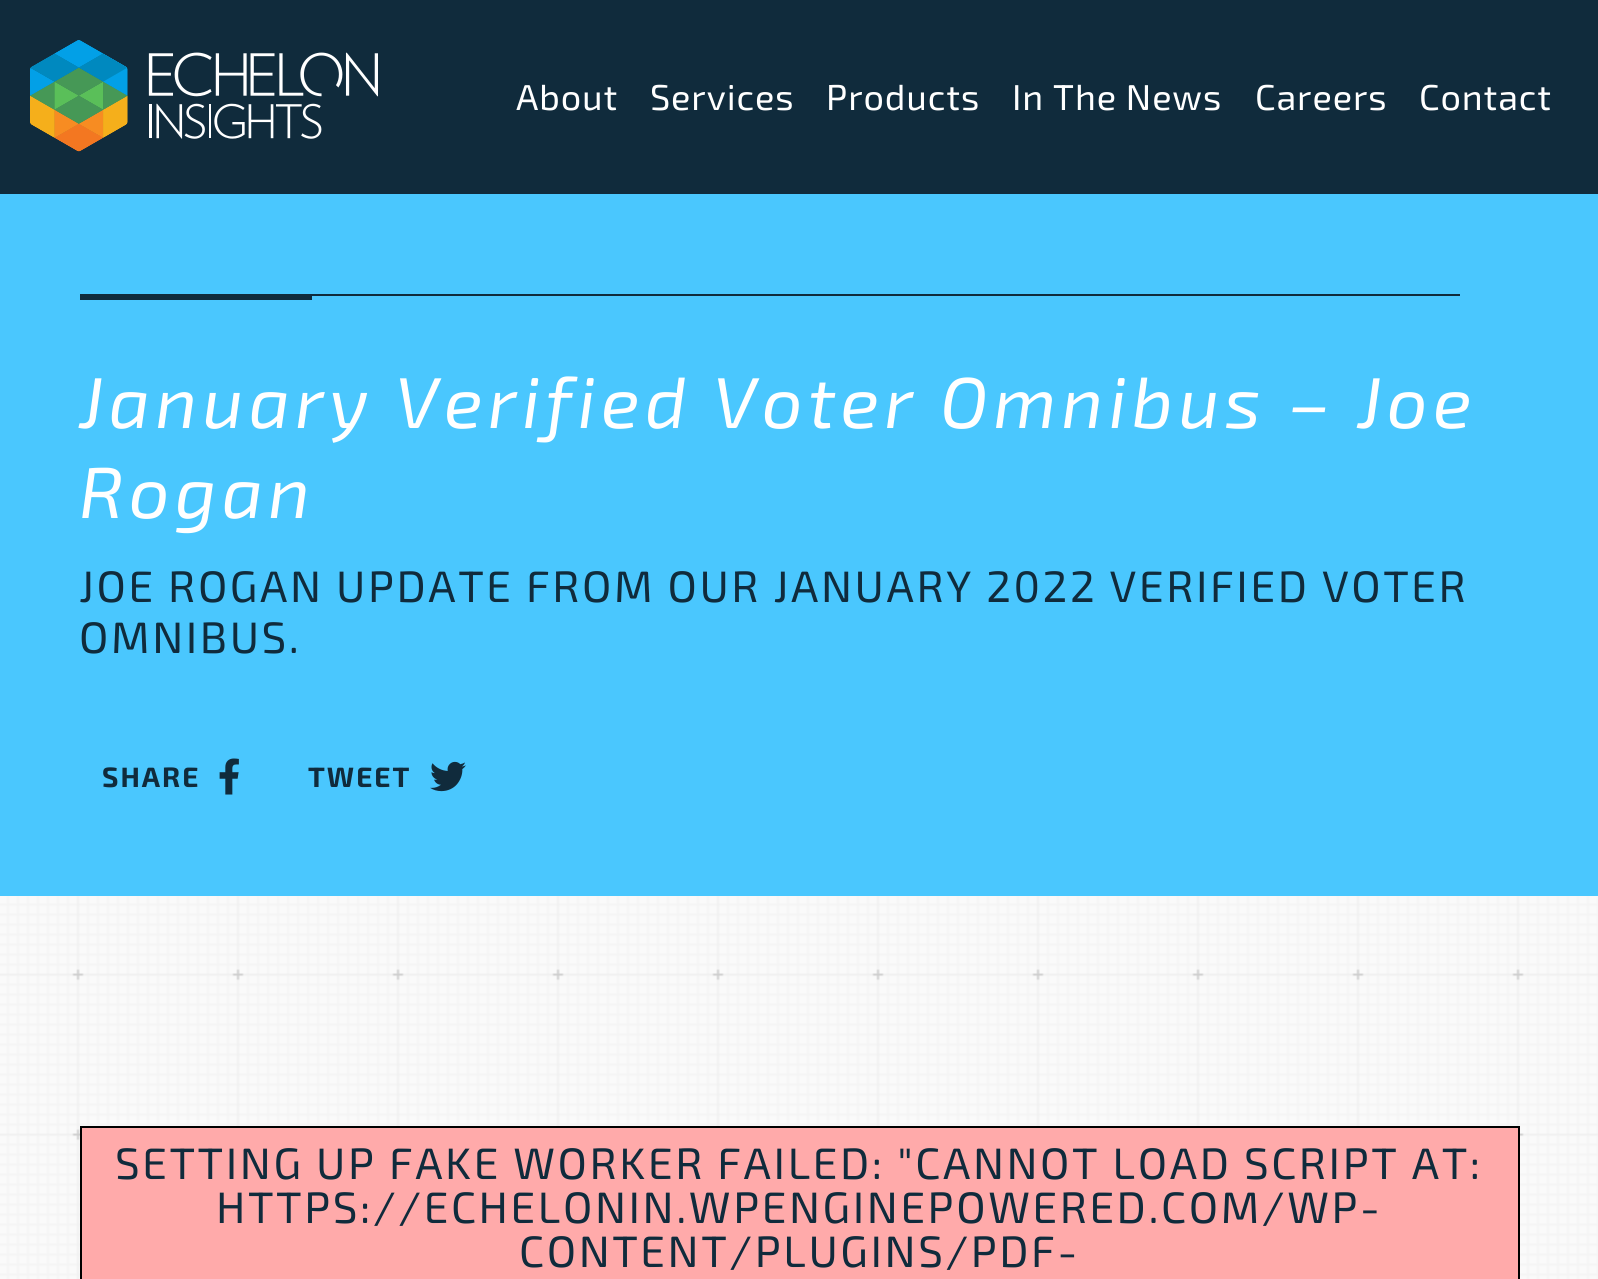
#include <cairo/cairo.h>
#include <math.h>
#include <stddef.h>

typedef struct { double x, y; const char *s; } line_t;
typedef struct { double x, y, w, h; unsigned color; } box_t;
static cairo_t *cr;

static void rgb(unsigned color)
{
	cairo_set_source_rgb(cr, (color >> 16) / 255.0, (color >> 8 & 255) / 255.0, (color & 255) / 255.0);
}

static void tracked(double x, double y, const char *s, double letter, double word)
{
	cairo_move_to(cr, x, y);
	while (*s) {
		char ch[5] = {0};
		int n = 0;
		do ch[n++] = *s++; while ((*s & 0xC0) == 0x80);
		cairo_show_text(cr, ch);
		cairo_rel_move_to(cr, letter + word * (*ch == ' '), 0);
	}
}

static void image(const char *path, double x, double y, double w, double h)
{
	cairo_surface_t *image = cairo_image_surface_create_from_png(path);
	cairo_save(cr);
	cairo_set_source_surface(cr, image, x, y);
	cairo_rectangle(cr, x, y, w, h);
	cairo_fill(cr);
	cairo_restore(cr);
	cairo_surface_destroy(image);
}

int main(void) {
	cairo_surface_t *surface = cairo_image_surface_create(CAIRO_FORMAT_RGB24, 1598, 1279);
	cr = cairo_create(surface);
	cairo_font_options_t *options = cairo_font_options_create();
	cairo_font_options_set_hint_metrics(options, CAIRO_HINT_METRICS_OFF);
	cairo_font_options_set_hint_style(options, CAIRO_HINT_STYLE_NONE);
	cairo_set_font_options(cr, options);
	cairo_set_miter_limit(cr, 4);
	rgb(0xffffff);
	cairo_paint(cr);
	image("img/1.png", 0, 896, 1598, 383);
	rgb(0x102b3c);
	cairo_rectangle(cr, 0, 0, 1598, 194);
	cairo_fill(cr);
	image("img/2.png", 30, 40, 348, 112);
	{
		static const box_t items[] = {
			{0, 194, 1598, 702, 0x4ac7fe},
			{80, 294, 1380, 2, 0x102b3c},
			{80, 296, 232, 4, 0x102b3c},
		};
		for (size_t i = 0; i < sizeof items / sizeof *items; i++) {
			rgb(items[i].color);
			cairo_rectangle(cr, items[i].x, items[i].y, items[i].w, items[i].h);
			cairo_fill(cr);
		}
	}
	image("img/3.png", 219, 758, 20, 37);
	image("img/4.png", 430, 761, 36, 31);
	cairo_rectangle(cr, 81, 1127, 1438, 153);
	rgb(0x000000);
	cairo_stroke(cr);
	rgb(0xffaaaa);
	cairo_rectangle(cr, 82, 1128, 1436, 151);
	cairo_fill(cr);
	cairo_select_font_face(cr, "Exo 2", CAIRO_FONT_SLANT_NORMAL, CAIRO_FONT_WEIGHT_NORMAL);
	cairo_set_font_size(cr, 36);
	rgb(0xffffff);
	{
		static const line_t items[] = {
			{516, 110, "About"},
			{650, 110, "Services"},
			{826, 110, "Products"},
			{1012, 110, "In The News"},
			{1255, 110, "Careers"},
			{1419, 110, "Contact"},
		};
		for (size_t i = 0; i < sizeof items / sizeof *items; i++) {
			tracked(items[i].x, items[i].y, items[i].s, 0.9, 0);
		}
	}
	cairo_select_font_face(cr, "Exo 2", CAIRO_FONT_SLANT_ITALIC, CAIRO_FONT_WEIGHT_NORMAL);
	cairo_set_font_size(cr, 72);
	tracked(79, 428, "January Verified Voter Omnibus – Joe", 5.4, 0);
	tracked(79, 518, "Rogan", 5.4, 0);
	cairo_select_font_face(cr, "Exo 2", CAIRO_FONT_SLANT_NORMAL, CAIRO_FONT_WEIGHT_NORMAL);
	cairo_set_font_size(cr, 44);
	rgb(0x102b3c);
	tracked(79, 602, "JOE ROGAN UPDATE FROM OUR JANUARY 2022 VERIFIED VOTER", 2.58, 0);
	tracked(79, 653, "OMNIBUS.", 2.58, 0);
	cairo_select_font_face(cr, "Exo 2", CAIRO_FONT_SLANT_NORMAL, CAIRO_FONT_WEIGHT_BOLD);
	cairo_set_font_size(cr, 28);
	tracked(102, 787, "SHARE", 2, 0);
	tracked(308, 787, "TWEET", 2, 0);
	cairo_select_font_face(cr, "Exo 2", CAIRO_FONT_SLANT_NORMAL, CAIRO_FONT_WEIGHT_NORMAL);
	cairo_set_font_size(cr, 44);
	{
		static const line_t items[] = {
			{115, 1179, "SETTING UP FAKE WORKER FAILED: \"CANNOT LOAD SCRIPT AT:"},
			{216, 1223, "HTTPS://ECHELONIN.WPENGINEPOWERED.COM/WP-"},
			{519, 1267, "CONTENT/PLUGINS/PDF-"},
		};
		for (size_t i = 0; i < sizeof items / sizeof *items; i++) {
			tracked(items[i].x, items[i].y, items[i].s, 2.58, 0);
		}
	}
	cairo_surface_write_to_png(surface, "page.png");
	cairo_font_options_destroy(options);
	cairo_destroy(cr);
	cairo_surface_destroy(surface);
	return 0;
}
